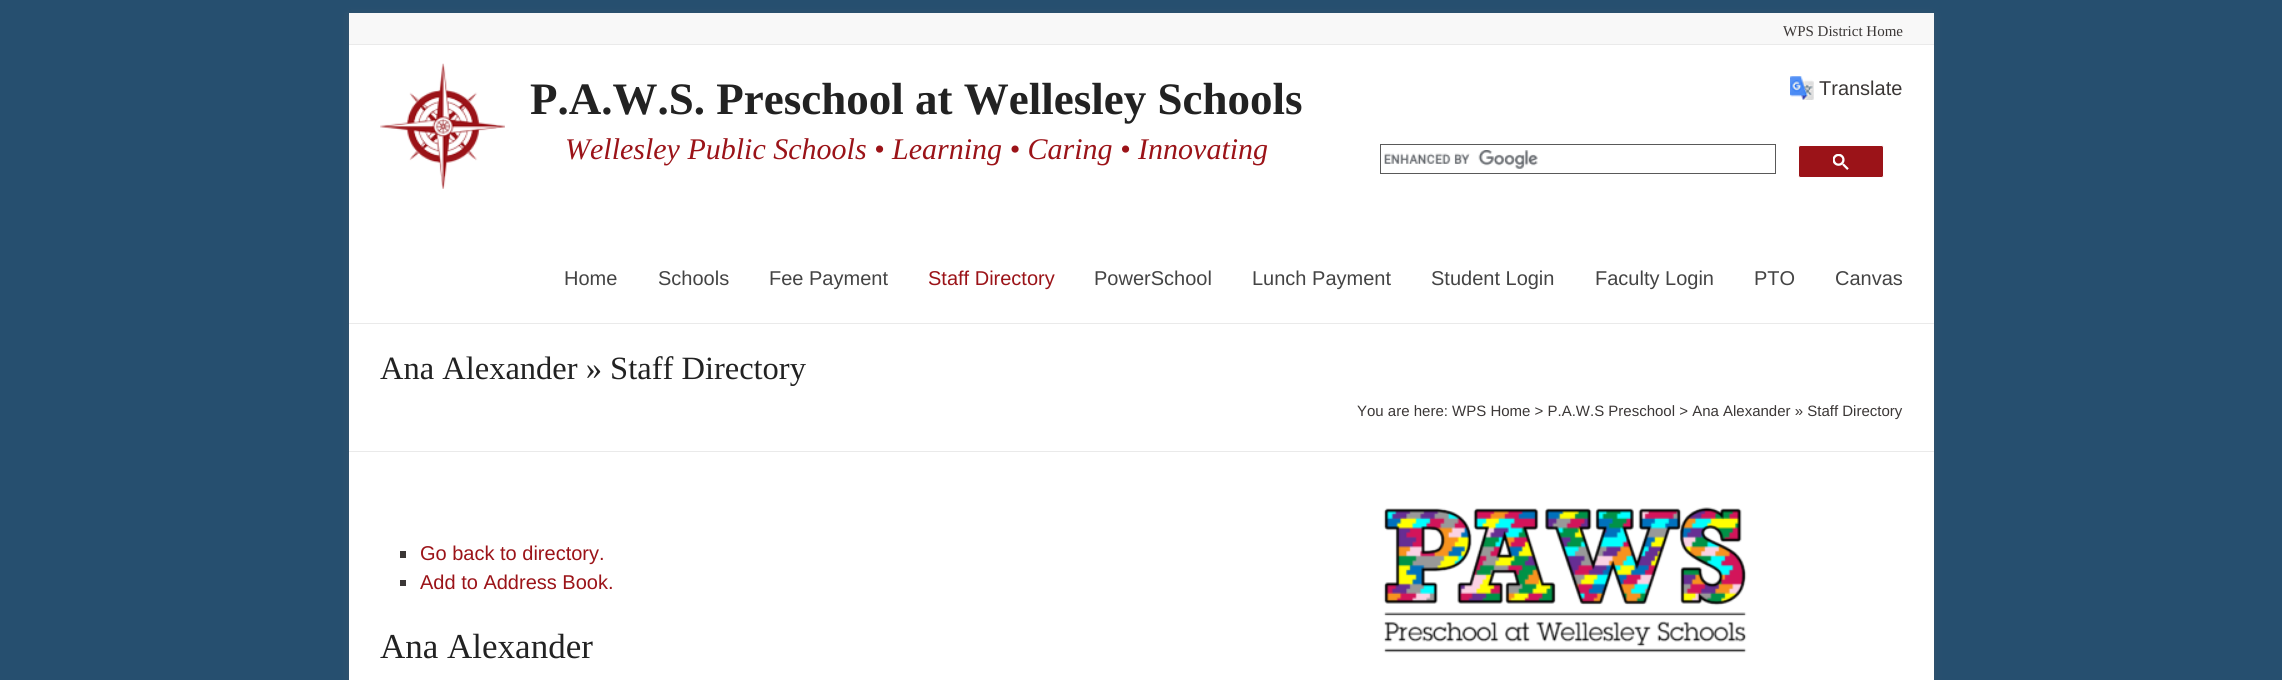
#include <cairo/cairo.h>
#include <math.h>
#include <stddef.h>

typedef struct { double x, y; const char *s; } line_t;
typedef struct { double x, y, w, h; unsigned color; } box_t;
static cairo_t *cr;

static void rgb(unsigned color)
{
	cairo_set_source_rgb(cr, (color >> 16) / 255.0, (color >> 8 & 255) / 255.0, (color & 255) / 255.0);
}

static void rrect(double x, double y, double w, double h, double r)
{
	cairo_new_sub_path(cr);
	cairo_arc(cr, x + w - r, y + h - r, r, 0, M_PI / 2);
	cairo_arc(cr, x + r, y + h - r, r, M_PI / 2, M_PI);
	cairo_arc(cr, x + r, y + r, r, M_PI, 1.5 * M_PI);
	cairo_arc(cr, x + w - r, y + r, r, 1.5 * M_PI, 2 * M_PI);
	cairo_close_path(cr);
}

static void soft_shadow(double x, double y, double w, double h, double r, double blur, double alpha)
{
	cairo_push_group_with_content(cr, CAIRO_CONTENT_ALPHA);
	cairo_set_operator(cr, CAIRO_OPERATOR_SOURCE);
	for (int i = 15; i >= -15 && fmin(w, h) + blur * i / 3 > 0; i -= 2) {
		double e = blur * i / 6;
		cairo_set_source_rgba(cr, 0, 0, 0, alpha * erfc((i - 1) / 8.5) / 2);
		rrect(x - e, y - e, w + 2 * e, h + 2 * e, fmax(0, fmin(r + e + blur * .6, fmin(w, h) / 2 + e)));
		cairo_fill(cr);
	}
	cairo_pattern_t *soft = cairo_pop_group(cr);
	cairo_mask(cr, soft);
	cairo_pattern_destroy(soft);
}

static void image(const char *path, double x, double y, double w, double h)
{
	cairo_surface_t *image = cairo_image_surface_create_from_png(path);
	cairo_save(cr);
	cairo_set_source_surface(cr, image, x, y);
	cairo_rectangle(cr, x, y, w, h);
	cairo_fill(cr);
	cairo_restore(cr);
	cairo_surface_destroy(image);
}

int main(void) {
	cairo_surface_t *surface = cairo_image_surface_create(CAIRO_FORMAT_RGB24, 2282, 680);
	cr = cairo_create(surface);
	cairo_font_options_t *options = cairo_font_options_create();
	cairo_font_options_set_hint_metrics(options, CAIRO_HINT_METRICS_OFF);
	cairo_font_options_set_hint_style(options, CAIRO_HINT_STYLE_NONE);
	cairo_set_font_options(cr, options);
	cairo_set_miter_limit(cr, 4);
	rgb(0x264f6f);
	cairo_paint(cr);
	rgb(0x646464);
	soft_shadow(349, 15, 1585, 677, 0, 4, 0.3);
	{
		static const box_t items[] = {
			{349, 45, 1585, 635, 0xffffff},
			{349, 13, 1585, 31, 0xf8f8f8},
			{349, 44, 1585, 1, 0xeaeaea},
			{349, 323, 1585, 1, 0xeaeaea},
		};
		for (size_t i = 0; i < sizeof items / sizeof *items; i++) {
			rgb(items[i].color);
			cairo_rectangle(cr, items[i].x, items[i].y, items[i].w, items[i].h);
			cairo_fill(cr);
		}
	}
	image("img/1.png", 1790, 76, 24, 24);
	{
		static const box_t items[] = {
			{1380, 144, 396, 1, 0x595959},
			{1775, 144, 1, 30, 0x595959},
			{1380, 173, 396, 1, 0x595959},
			{1380, 144, 1, 30, 0x595959},
		};
		for (size_t i = 0; i < sizeof items / sizeof *items; i++) {
			rgb(items[i].color);
			cairo_rectangle(cr, items[i].x, items[i].y, items[i].w, items[i].h);
			cairo_fill(cr);
		}
	}
	image("img/2.png", 1384, 150, 154, 19);
	rgb(0x9b1318);
	rrect(1798.5, 145.5, 85, 32, 2);
	cairo_fill_preserve(cr);
	rgb(0xffffff);
	cairo_set_line_width(cr, 1);
	cairo_stroke(cr);
	image("img/3.png", 1833, 154, 16, 16);
	image("img/4.png", 380, 63, 125, 126);
	{
		static const box_t items[] = {
			{349, 451, 1585, 1, 0xeaeaea},
			{400, 551, 6, 7, 0x3b3736},
			{400, 580, 6, 6, 0x3b3736},
		};
		for (size_t i = 0; i < sizeof items / sizeof *items; i++) {
			rgb(items[i].color);
			cairo_rectangle(cr, items[i].x, items[i].y, items[i].w, items[i].h);
			cairo_fill(cr);
		}
	}
	image("img/5.png", 1383, 507, 364, 146);
	cairo_select_font_face(cr, "Liberation Serif", CAIRO_FONT_SLANT_NORMAL, CAIRO_FONT_WEIGHT_NORMAL);
	cairo_set_font_size(cr, 15);
	cairo_move_to(cr, 1783, 36);
	cairo_show_text(cr, "WPS District Home");
	cairo_select_font_face(cr, "Liberation Sans", CAIRO_FONT_SLANT_NORMAL, CAIRO_FONT_WEIGHT_NORMAL);
	cairo_set_font_size(cr, 20);
	cairo_move_to(cr, 1819, 95);
	cairo_show_text(cr, "Translate");
	rgb(0x444444);
	{
		static const line_t items[] = {
			{564, 285, "Home"},
			{658, 285, "Schools"},
			{769, 285, "Fee Payment"},
		};
		for (size_t i = 0; i < sizeof items / sizeof *items; i++) {
			cairo_move_to(cr, items[i].x, items[i].y);
			cairo_show_text(cr, items[i].s);
		}
	}
	rgb(0x9b1318);
	cairo_move_to(cr, 928, 285);
	cairo_show_text(cr, "Staff Directory");
	rgb(0x444444);
	{
		static const line_t items[] = {
			{1094, 285, "PowerSchool"},
			{1252, 285, "Lunch Payment"},
			{1431, 285, "Student Login"},
			{1595, 285, "Faculty Login"},
			{1754, 285, "PTO"},
			{1835, 285, "Canvas"},
		};
		for (size_t i = 0; i < sizeof items / sizeof *items; i++) {
			cairo_move_to(cr, items[i].x, items[i].y);
			cairo_show_text(cr, items[i].s);
		}
	}
	cairo_select_font_face(cr, "Liberation Serif", CAIRO_FONT_SLANT_NORMAL, CAIRO_FONT_WEIGHT_BOLD);
	cairo_set_font_size(cr, 45);
	rgb(0x222222);
	cairo_move_to(cr, 530, 114);
	cairo_show_text(cr, "P.A.W.S. Preschool at Wellesley Schools");
	cairo_select_font_face(cr, "Liberation Serif", CAIRO_FONT_SLANT_ITALIC, CAIRO_FONT_WEIGHT_NORMAL);
	cairo_set_font_size(cr, 30);
	rgb(0x9b1318);
	cairo_move_to(cr, 565, 159);
	cairo_show_text(cr, "Wellesley Public Schools • Learning • Caring • Innovating");
	cairo_select_font_face(cr, "Liberation Serif", CAIRO_FONT_SLANT_NORMAL, CAIRO_FONT_WEIGHT_NORMAL);
	cairo_set_font_size(cr, 32.5);
	rgb(0x222222);
	cairo_move_to(cr, 380, 379);
	cairo_show_text(cr, "Ana Alexander » Staff Directory");
	cairo_select_font_face(cr, "Liberation Sans", CAIRO_FONT_SLANT_NORMAL, CAIRO_FONT_WEIGHT_NORMAL);
	cairo_set_font_size(cr, 15);
	rgb(0x3b3736);
	cairo_move_to(cr, 1357, 416);
	cairo_show_text(cr, "You are here: WPS Home > P.A.W.S Preschool > Ana Alexander » Staff Directory");
	cairo_set_font_size(cr, 20);
	rgb(0x9b1318);
	cairo_move_to(cr, 420, 560);
	cairo_show_text(cr, "Go back to directory.");
	cairo_move_to(cr, 420, 589);
	cairo_show_text(cr, "Add to Address Book.");
	cairo_select_font_face(cr, "Liberation Serif", CAIRO_FONT_SLANT_NORMAL, CAIRO_FONT_WEIGHT_NORMAL);
	cairo_set_font_size(cr, 35);
	rgb(0x222222);
	cairo_move_to(cr, 380, 658);
	cairo_show_text(cr, "Ana Alexander");
	cairo_surface_write_to_png(surface, "page.png");
	cairo_font_options_destroy(options);
	cairo_destroy(cr);
	cairo_surface_destroy(surface);
	return 0;
}
